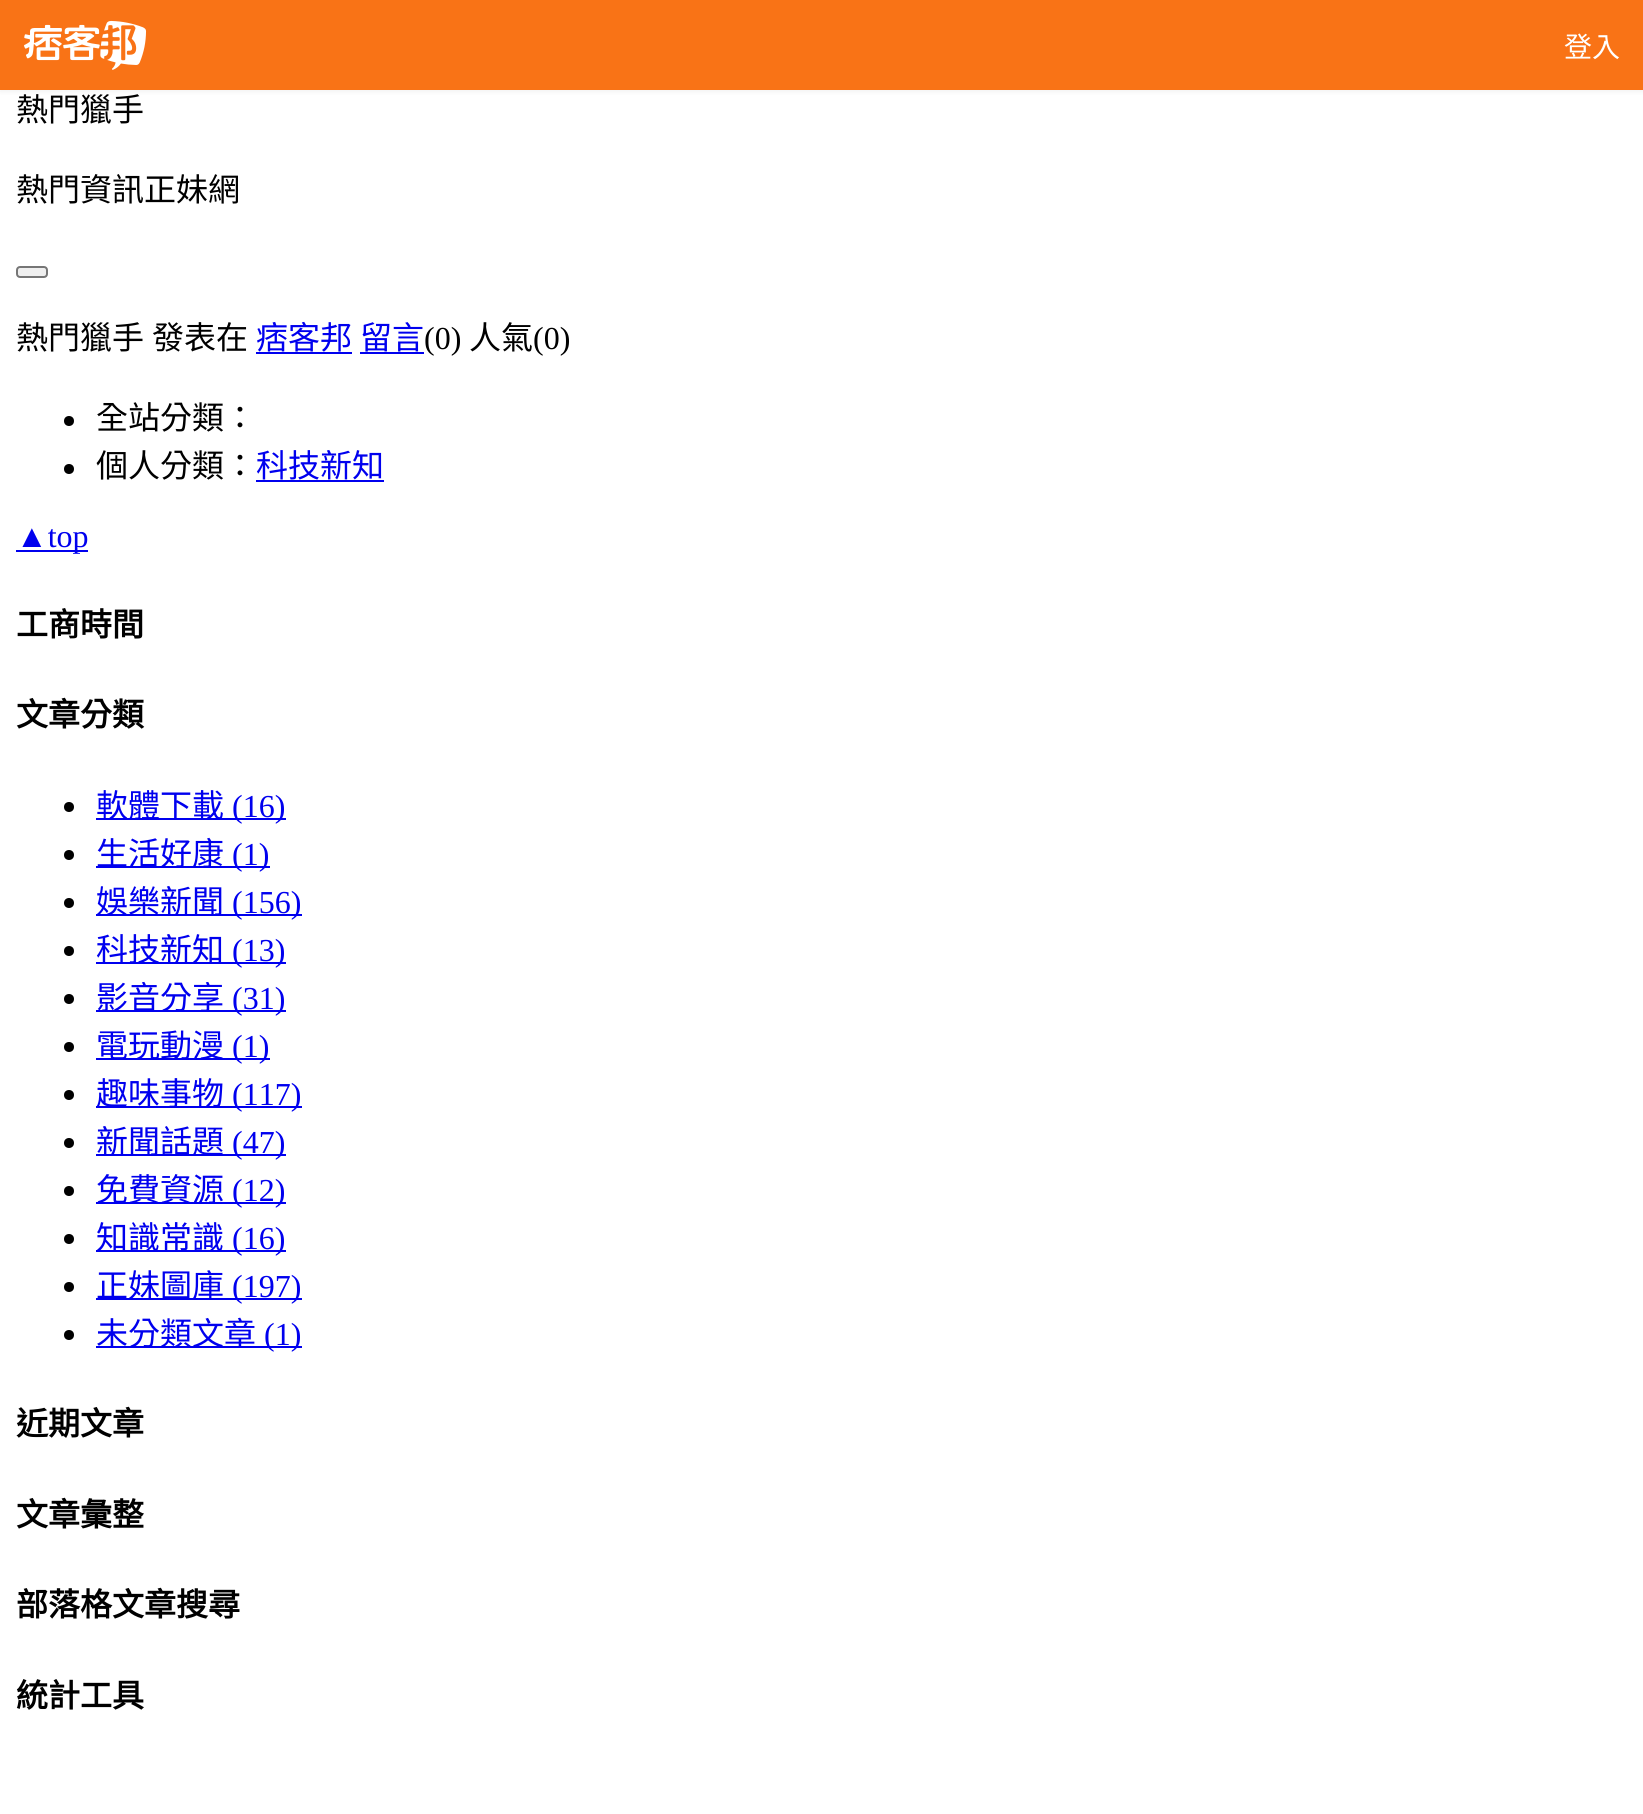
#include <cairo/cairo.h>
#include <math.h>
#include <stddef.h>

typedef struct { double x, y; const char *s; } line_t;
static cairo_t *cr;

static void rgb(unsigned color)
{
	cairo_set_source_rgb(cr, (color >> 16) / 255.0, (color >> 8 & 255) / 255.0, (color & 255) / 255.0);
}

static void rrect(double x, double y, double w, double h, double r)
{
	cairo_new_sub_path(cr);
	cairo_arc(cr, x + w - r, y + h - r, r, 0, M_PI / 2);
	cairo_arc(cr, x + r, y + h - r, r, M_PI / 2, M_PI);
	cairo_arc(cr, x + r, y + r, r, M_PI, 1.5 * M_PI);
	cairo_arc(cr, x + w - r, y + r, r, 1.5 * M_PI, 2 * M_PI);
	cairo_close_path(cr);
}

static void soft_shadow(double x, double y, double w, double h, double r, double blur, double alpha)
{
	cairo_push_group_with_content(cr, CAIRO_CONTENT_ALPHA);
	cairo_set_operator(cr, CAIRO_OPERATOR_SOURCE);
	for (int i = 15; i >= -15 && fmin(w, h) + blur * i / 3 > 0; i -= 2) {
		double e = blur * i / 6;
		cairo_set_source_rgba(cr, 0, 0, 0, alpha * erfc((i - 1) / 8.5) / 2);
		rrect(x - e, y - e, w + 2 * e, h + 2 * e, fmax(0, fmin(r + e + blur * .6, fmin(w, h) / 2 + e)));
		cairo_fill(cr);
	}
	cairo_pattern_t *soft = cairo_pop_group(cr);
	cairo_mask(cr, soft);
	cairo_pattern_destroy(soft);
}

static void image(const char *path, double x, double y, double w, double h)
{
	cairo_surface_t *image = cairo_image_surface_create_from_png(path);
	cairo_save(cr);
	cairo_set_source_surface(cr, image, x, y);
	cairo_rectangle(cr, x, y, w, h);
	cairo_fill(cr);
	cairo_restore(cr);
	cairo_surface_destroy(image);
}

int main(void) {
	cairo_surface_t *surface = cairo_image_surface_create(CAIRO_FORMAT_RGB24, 1643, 1814);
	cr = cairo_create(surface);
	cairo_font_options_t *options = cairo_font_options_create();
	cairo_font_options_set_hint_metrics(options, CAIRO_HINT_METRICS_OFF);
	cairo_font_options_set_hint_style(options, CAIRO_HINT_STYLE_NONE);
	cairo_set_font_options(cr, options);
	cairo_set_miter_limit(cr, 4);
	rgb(0xffffff);
	cairo_paint(cr);
	rgb(0x000000);
	soft_shadow(0, 2, 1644, 90, 0, 2, 0.05);
	rgb(0xf97316);
	cairo_rectangle(cr, 0, 0, 1643, 90);
	cairo_fill(cr);
	image("img/1.png", 24, 20, 123, 50);
	rgb(0xefefef);
	rrect(17, 267, 30, 10, 3);
	cairo_fill_preserve(cr);
	rgb(0x767676);
	cairo_stroke(cr);
	rgb(0x0000ee);
	cairo_rectangle(cr, 256, 352, 96, 2);
	cairo_fill(cr);
	cairo_rectangle(cr, 360, 352, 64, 2);
	cairo_fill(cr);
	rgb(0x000000);
	cairo_arc(cr, 69, 421, 5, 0, 2 * M_PI);
	cairo_fill(cr);
	cairo_arc(cr, 69, 469, 5, 0, 2 * M_PI);
	cairo_fill(cr);
	rgb(0x0000ee);
	cairo_rectangle(cr, 256, 480, 128, 2);
	cairo_fill(cr);
	cairo_rectangle(cr, 16, 550, 72, 2);
	cairo_fill(cr);
	rgb(0x000000);
	cairo_arc(cr, 69, 807, 5, 0, 2 * M_PI);
	cairo_fill(cr);
	rgb(0x0000ee);
	cairo_rectangle(cr, 96, 818, 190, 2);
	cairo_fill(cr);
	rgb(0x000000);
	cairo_arc(cr, 69, 855, 5, 0, 2 * M_PI);
	cairo_fill(cr);
	rgb(0x0000ee);
	cairo_rectangle(cr, 96, 866, 174, 2);
	cairo_fill(cr);
	rgb(0x000000);
	cairo_arc(cr, 69, 903, 5, 0, 2 * M_PI);
	cairo_fill(cr);
	rgb(0x0000ee);
	cairo_rectangle(cr, 96, 914, 206, 2);
	cairo_fill(cr);
	rgb(0x000000);
	cairo_arc(cr, 69, 951, 5, 0, 2 * M_PI);
	cairo_fill(cr);
	rgb(0x0000ee);
	cairo_rectangle(cr, 96, 962, 190, 2);
	cairo_fill(cr);
	rgb(0x000000);
	cairo_arc(cr, 69, 999, 5, 0, 2 * M_PI);
	cairo_fill(cr);
	rgb(0x0000ee);
	cairo_rectangle(cr, 96, 1010, 190, 2);
	cairo_fill(cr);
	rgb(0x000000);
	cairo_arc(cr, 69, 1047, 5, 0, 2 * M_PI);
	cairo_fill(cr);
	rgb(0x0000ee);
	cairo_rectangle(cr, 96, 1058, 174, 2);
	cairo_fill(cr);
	rgb(0x000000);
	cairo_arc(cr, 69, 1095, 5, 0, 2 * M_PI);
	cairo_fill(cr);
	rgb(0x0000ee);
	cairo_rectangle(cr, 96, 1106, 206, 2);
	cairo_fill(cr);
	rgb(0x000000);
	cairo_arc(cr, 69, 1143, 5, 0, 2 * M_PI);
	cairo_fill(cr);
	rgb(0x0000ee);
	cairo_rectangle(cr, 96, 1154, 190, 2);
	cairo_fill(cr);
	rgb(0x000000);
	cairo_arc(cr, 69, 1191, 5, 0, 2 * M_PI);
	cairo_fill(cr);
	rgb(0x0000ee);
	cairo_rectangle(cr, 96, 1202, 190, 2);
	cairo_fill(cr);
	rgb(0x000000);
	cairo_arc(cr, 69, 1239, 5, 0, 2 * M_PI);
	cairo_fill(cr);
	rgb(0x0000ee);
	cairo_rectangle(cr, 96, 1250, 190, 2);
	cairo_fill(cr);
	rgb(0x000000);
	cairo_arc(cr, 69, 1287, 5, 0, 2 * M_PI);
	cairo_fill(cr);
	rgb(0x0000ee);
	cairo_rectangle(cr, 96, 1298, 206, 2);
	cairo_fill(cr);
	rgb(0x000000);
	cairo_arc(cr, 69, 1335, 5, 0, 2 * M_PI);
	cairo_fill(cr);
	rgb(0x0000ee);
	cairo_rectangle(cr, 96, 1346, 206, 2);
	cairo_fill(cr);
	cairo_select_font_face(cr, "Noto Sans CJK TC", CAIRO_FONT_SLANT_NORMAL, CAIRO_FONT_WEIGHT_NORMAL);
	cairo_set_font_size(cr, 28);
	rgb(0xffffff);
	cairo_move_to(cr, 1564, 57);
	cairo_show_text(cr, "登入");
	cairo_set_font_size(cr, 32);
	rgb(0x000000);
	{
		static const line_t items[] = {
			{16, 121, "熱門獵手"},
			{16, 201, "熱門資訊正妹網"},
			{16, 349, "熱門獵手"},
			{152, 349, "發表在"},
		};
		for (size_t i = 0; i < sizeof items / sizeof *items; i++) {
			cairo_move_to(cr, items[i].x, items[i].y);
			cairo_show_text(cr, items[i].s);
		}
	}
	rgb(0x0000ee);
	cairo_move_to(cr, 256, 349);
	cairo_show_text(cr, "痞客邦");
	cairo_move_to(cr, 360, 349);
	cairo_show_text(cr, "留言");
	cairo_select_font_face(cr, "Liberation Serif", CAIRO_FONT_SLANT_NORMAL, CAIRO_FONT_WEIGHT_NORMAL);
	rgb(0x000000);
	cairo_move_to(cr, 424, 349);
	cairo_show_text(cr, "(0)");
	cairo_select_font_face(cr, "Noto Sans CJK TC", CAIRO_FONT_SLANT_NORMAL, CAIRO_FONT_WEIGHT_NORMAL);
	cairo_move_to(cr, 469, 349);
	cairo_show_text(cr, "人氣");
	cairo_select_font_face(cr, "Liberation Serif", CAIRO_FONT_SLANT_NORMAL, CAIRO_FONT_WEIGHT_NORMAL);
	cairo_move_to(cr, 533, 349);
	cairo_show_text(cr, "(0)");
	cairo_select_font_face(cr, "Noto Sans CJK TC", CAIRO_FONT_SLANT_NORMAL, CAIRO_FONT_WEIGHT_NORMAL);
	cairo_move_to(cr, 96, 429);
	cairo_show_text(cr, "全站分類：");
	cairo_move_to(cr, 96, 477);
	cairo_show_text(cr, "個人分類：");
	rgb(0x0000ee);
	cairo_move_to(cr, 256, 477);
	cairo_show_text(cr, "科技新知");
	cairo_select_font_face(cr, "Liberation Serif", CAIRO_FONT_SLANT_NORMAL, CAIRO_FONT_WEIGHT_NORMAL);
	cairo_move_to(cr, 16, 547);
	cairo_show_text(cr, "▲top");
	cairo_select_font_face(cr, "Noto Sans CJK TC", CAIRO_FONT_SLANT_NORMAL, CAIRO_FONT_WEIGHT_BOLD);
	rgb(0x000000);
	cairo_move_to(cr, 16, 636);
	cairo_show_text(cr, "工商時間");
	cairo_move_to(cr, 16, 726);
	cairo_show_text(cr, "文章分類");
	cairo_select_font_face(cr, "Noto Sans CJK TC", CAIRO_FONT_SLANT_NORMAL, CAIRO_FONT_WEIGHT_NORMAL);
	rgb(0x0000ee);
	cairo_move_to(cr, 96, 817);
	cairo_show_text(cr, "軟體下載");
	cairo_select_font_face(cr, "Liberation Serif", CAIRO_FONT_SLANT_NORMAL, CAIRO_FONT_WEIGHT_NORMAL);
	cairo_move_to(cr, 232, 817);
	cairo_show_text(cr, "(16)");
	cairo_select_font_face(cr, "Noto Sans CJK TC", CAIRO_FONT_SLANT_NORMAL, CAIRO_FONT_WEIGHT_NORMAL);
	cairo_move_to(cr, 96, 865);
	cairo_show_text(cr, "生活好康");
	cairo_select_font_face(cr, "Liberation Serif", CAIRO_FONT_SLANT_NORMAL, CAIRO_FONT_WEIGHT_NORMAL);
	cairo_move_to(cr, 232, 865);
	cairo_show_text(cr, "(1)");
	cairo_select_font_face(cr, "Noto Sans CJK TC", CAIRO_FONT_SLANT_NORMAL, CAIRO_FONT_WEIGHT_NORMAL);
	cairo_move_to(cr, 96, 913);
	cairo_show_text(cr, "娛樂新聞");
	cairo_select_font_face(cr, "Liberation Serif", CAIRO_FONT_SLANT_NORMAL, CAIRO_FONT_WEIGHT_NORMAL);
	cairo_move_to(cr, 232, 913);
	cairo_show_text(cr, "(156)");
	cairo_select_font_face(cr, "Noto Sans CJK TC", CAIRO_FONT_SLANT_NORMAL, CAIRO_FONT_WEIGHT_NORMAL);
	cairo_move_to(cr, 96, 961);
	cairo_show_text(cr, "科技新知");
	cairo_select_font_face(cr, "Liberation Serif", CAIRO_FONT_SLANT_NORMAL, CAIRO_FONT_WEIGHT_NORMAL);
	cairo_move_to(cr, 232, 961);
	cairo_show_text(cr, "(13)");
	cairo_select_font_face(cr, "Noto Sans CJK TC", CAIRO_FONT_SLANT_NORMAL, CAIRO_FONT_WEIGHT_NORMAL);
	cairo_move_to(cr, 96, 1009);
	cairo_show_text(cr, "影音分享");
	cairo_select_font_face(cr, "Liberation Serif", CAIRO_FONT_SLANT_NORMAL, CAIRO_FONT_WEIGHT_NORMAL);
	cairo_move_to(cr, 232, 1009);
	cairo_show_text(cr, "(31)");
	cairo_select_font_face(cr, "Noto Sans CJK TC", CAIRO_FONT_SLANT_NORMAL, CAIRO_FONT_WEIGHT_NORMAL);
	cairo_move_to(cr, 96, 1057);
	cairo_show_text(cr, "電玩動漫");
	cairo_select_font_face(cr, "Liberation Serif", CAIRO_FONT_SLANT_NORMAL, CAIRO_FONT_WEIGHT_NORMAL);
	cairo_move_to(cr, 232, 1057);
	cairo_show_text(cr, "(1)");
	cairo_select_font_face(cr, "Noto Sans CJK TC", CAIRO_FONT_SLANT_NORMAL, CAIRO_FONT_WEIGHT_NORMAL);
	cairo_move_to(cr, 96, 1105);
	cairo_show_text(cr, "趣味事物");
	cairo_select_font_face(cr, "Liberation Serif", CAIRO_FONT_SLANT_NORMAL, CAIRO_FONT_WEIGHT_NORMAL);
	cairo_move_to(cr, 232, 1105);
	cairo_show_text(cr, "(117)");
	cairo_select_font_face(cr, "Noto Sans CJK TC", CAIRO_FONT_SLANT_NORMAL, CAIRO_FONT_WEIGHT_NORMAL);
	cairo_move_to(cr, 96, 1153);
	cairo_show_text(cr, "新聞話題");
	cairo_select_font_face(cr, "Liberation Serif", CAIRO_FONT_SLANT_NORMAL, CAIRO_FONT_WEIGHT_NORMAL);
	cairo_move_to(cr, 232, 1153);
	cairo_show_text(cr, "(47)");
	cairo_select_font_face(cr, "Noto Sans CJK TC", CAIRO_FONT_SLANT_NORMAL, CAIRO_FONT_WEIGHT_NORMAL);
	cairo_move_to(cr, 96, 1201);
	cairo_show_text(cr, "免費資源");
	cairo_select_font_face(cr, "Liberation Serif", CAIRO_FONT_SLANT_NORMAL, CAIRO_FONT_WEIGHT_NORMAL);
	cairo_move_to(cr, 232, 1201);
	cairo_show_text(cr, "(12)");
	cairo_select_font_face(cr, "Noto Sans CJK TC", CAIRO_FONT_SLANT_NORMAL, CAIRO_FONT_WEIGHT_NORMAL);
	cairo_move_to(cr, 96, 1249);
	cairo_show_text(cr, "知識常識");
	cairo_select_font_face(cr, "Liberation Serif", CAIRO_FONT_SLANT_NORMAL, CAIRO_FONT_WEIGHT_NORMAL);
	cairo_move_to(cr, 232, 1249);
	cairo_show_text(cr, "(16)");
	cairo_select_font_face(cr, "Noto Sans CJK TC", CAIRO_FONT_SLANT_NORMAL, CAIRO_FONT_WEIGHT_NORMAL);
	cairo_move_to(cr, 96, 1297);
	cairo_show_text(cr, "正妹圖庫");
	cairo_select_font_face(cr, "Liberation Serif", CAIRO_FONT_SLANT_NORMAL, CAIRO_FONT_WEIGHT_NORMAL);
	cairo_move_to(cr, 232, 1297);
	cairo_show_text(cr, "(197)");
	cairo_select_font_face(cr, "Noto Sans CJK TC", CAIRO_FONT_SLANT_NORMAL, CAIRO_FONT_WEIGHT_NORMAL);
	cairo_move_to(cr, 96, 1345);
	cairo_show_text(cr, "未分類文章");
	cairo_select_font_face(cr, "Liberation Serif", CAIRO_FONT_SLANT_NORMAL, CAIRO_FONT_WEIGHT_NORMAL);
	cairo_move_to(cr, 264, 1345);
	cairo_show_text(cr, "(1)");
	cairo_select_font_face(cr, "Noto Sans CJK TC", CAIRO_FONT_SLANT_NORMAL, CAIRO_FONT_WEIGHT_BOLD);
	rgb(0x000000);
	{
		static const line_t items[] = {
			{16, 1435, "近期文章"},
			{16, 1526, "文章彙整"},
			{16, 1616, "部落格文章搜尋"},
			{16, 1707, "統計工具"},
		};
		for (size_t i = 0; i < sizeof items / sizeof *items; i++) {
			cairo_move_to(cr, items[i].x, items[i].y);
			cairo_show_text(cr, items[i].s);
		}
	}
	cairo_surface_write_to_png(surface, "page.png");
	cairo_font_options_destroy(options);
	cairo_destroy(cr);
	cairo_surface_destroy(surface);
	return 0;
}
